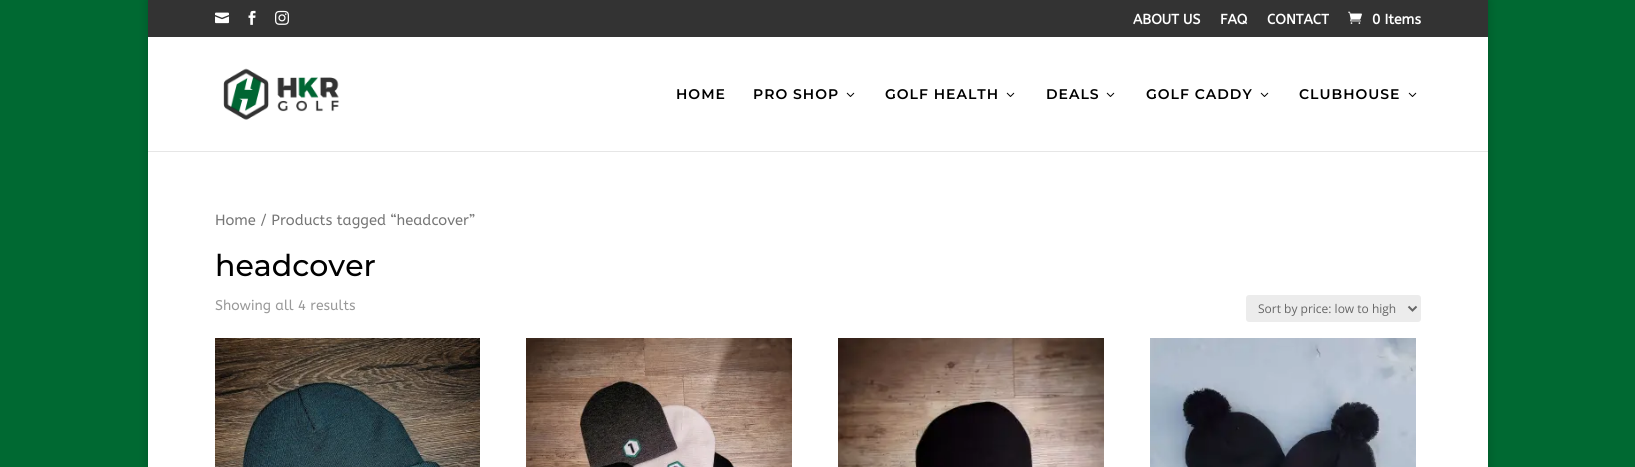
#include <cairo/cairo.h>
#include <math.h>
#include <stddef.h>

typedef struct { double x, y; const char *s; } line_t;
static cairo_t *cr;

static void rgb(unsigned color)
{
	cairo_set_source_rgb(cr, (color >> 16) / 255.0, (color >> 8 & 255) / 255.0, (color & 255) / 255.0);
}

static void tracked(double x, double y, const char *s, double letter, double word)
{
	cairo_move_to(cr, x, y);
	while (*s) {
		char ch[5] = {0};
		int n = 0;
		do ch[n++] = *s++; while ((*s & 0xC0) == 0x80);
		cairo_show_text(cr, ch);
		cairo_rel_move_to(cr, letter + word * (*ch == ' '), 0);
	}
}

static void rrect(double x, double y, double w, double h, double r)
{
	cairo_new_sub_path(cr);
	cairo_arc(cr, x + w - r, y + h - r, r, 0, M_PI / 2);
	cairo_arc(cr, x + r, y + h - r, r, M_PI / 2, M_PI);
	cairo_arc(cr, x + r, y + r, r, M_PI, 1.5 * M_PI);
	cairo_arc(cr, x + w - r, y + r, r, 1.5 * M_PI, 2 * M_PI);
	cairo_close_path(cr);
}

static void soft_shadow(double x, double y, double w, double h, double r, double blur, double alpha)
{
	cairo_push_group_with_content(cr, CAIRO_CONTENT_ALPHA);
	cairo_set_operator(cr, CAIRO_OPERATOR_SOURCE);
	for (int i = 15; i >= -15 && fmin(w, h) + blur * i / 3 > 0; i -= 2) {
		double e = blur * i / 6;
		cairo_set_source_rgba(cr, 0, 0, 0, alpha * erfc((i - 1) / 8.5) / 2);
		rrect(x - e, y - e, w + 2 * e, h + 2 * e, fmax(0, fmin(r + e + blur * .6, fmin(w, h) / 2 + e)));
		cairo_fill(cr);
	}
	cairo_pattern_t *soft = cairo_pop_group(cr);
	cairo_mask(cr, soft);
	cairo_pattern_destroy(soft);
}

static void image(const char *path, double x, double y, double w, double h)
{
	cairo_surface_t *image = cairo_image_surface_create_from_png(path);
	cairo_save(cr);
	cairo_set_source_surface(cr, image, x, y);
	cairo_rectangle(cr, x, y, w, h);
	cairo_fill(cr);
	cairo_restore(cr);
	cairo_surface_destroy(image);
}

int main(void) {
	cairo_surface_t *surface = cairo_image_surface_create(CAIRO_FORMAT_RGB24, 1635, 467);
	cr = cairo_create(surface);
	cairo_font_options_t *options = cairo_font_options_create();
	cairo_font_options_set_hint_metrics(options, CAIRO_HINT_METRICS_OFF);
	cairo_font_options_set_hint_style(options, CAIRO_HINT_STYLE_NONE);
	cairo_set_font_options(cr, options);
	cairo_set_miter_limit(cr, 4);
	rgb(0x006932);
	cairo_paint(cr);
	rgb(0x000000);
	soft_shadow(148, 0, 1340, 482, 0, 5, 0.2);
	rgb(0x333333);
	cairo_rectangle(cr, 148, 0, 1340, 37);
	cairo_fill(cr);
	image("img/1.png", 215, 12, 14, 12);
	image("img/2.png", 248, 10, 8, 15);
	image("img/3.png", 275, 10, 14, 15);
	image("img/4.png", 1348, 11, 14, 13);
	rgb(0xe6e6e6);
	cairo_rectangle(cr, 148, 151, 1340, 1);
	cairo_fill(cr);
	rgb(0xffffff);
	cairo_rectangle(cr, 148, 37, 1340, 114);
	cairo_fill(cr);
	image("img/5.png", 223, 68, 117, 52);
	image("img/6.png", 846, 92, 9, 5);
	image("img/6.png", 1006, 92, 9, 5);
	image("img/6.png", 1106, 92, 9, 5);
	image("img/6.png", 1260, 92, 9, 5);
	image("img/6.png", 1408, 92, 9, 5);
	cairo_rectangle(cr, 148, 152, 1340, 315);
	cairo_fill(cr);
	rgb(0xececec);
	rrect(1246, 295, 175, 27, 3);
	cairo_fill(cr);
	cairo_new_path(cr);
	cairo_move_to(cr, 1408.5, 306.5);
	cairo_line_to(cr, 1412.5, 310.5);
	cairo_line_to(cr, 1416.5, 306.5);
	rgb(0x666666);
	cairo_stroke(cr);
	image("img/7.png", 215, 338, 265, 129);
	image("img/8.png", 526, 338, 266, 129);
	image("img/9.png", 838, 338, 266, 129);
	image("img/10.png", 1150, 338, 266, 129);
	cairo_select_font_face(cr, "ABeeZee", CAIRO_FONT_SLANT_NORMAL, CAIRO_FONT_WEIGHT_BOLD);
	cairo_set_font_size(cr, 14);
	rgb(0xffffff);
	{
		static const line_t items[] = {
			{1133, 24, "ABOUT US"},
			{1220, 24, "FAQ"},
			{1267, 24, "CONTACT"},
			{1372, 24, "0 Items"},
		};
		for (size_t i = 0; i < sizeof items / sizeof *items; i++) {
			cairo_move_to(cr, items[i].x, items[i].y);
			cairo_show_text(cr, items[i].s);
		}
	}
	cairo_select_font_face(cr, "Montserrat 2 Thin", CAIRO_FONT_SLANT_NORMAL, CAIRO_FONT_WEIGHT_NORMAL);
	rgb(0x000000);
	{
		static const line_t items[] = {
			{676, 99, "HOME"},
			{753, 99, "PRO SHOP"},
			{885, 99, "GOLF HEALTH"},
			{1046, 99, "DEALS"},
			{1146, 99, "GOLF CADDY"},
			{1299, 99, "CLUBHOUSE"},
		};
		for (size_t i = 0; i < sizeof items / sizeof *items; i++) {
			tracked(items[i].x, items[i].y, items[i].s, 1, 0);
		}
	}
	cairo_select_font_face(cr, "ABeeZee", CAIRO_FONT_SLANT_NORMAL, CAIRO_FONT_WEIGHT_NORMAL);
	cairo_set_font_size(cr, 14.75);
	rgb(0x767676);
	cairo_move_to(cr, 215, 225);
	cairo_show_text(cr, "Home / Products tagged “headcover”");
	cairo_select_font_face(cr, "Montserrat Thin", CAIRO_FONT_SLANT_NORMAL, CAIRO_FONT_WEIGHT_NORMAL);
	cairo_set_font_size(cr, 30);
	rgb(0x000000);
	cairo_move_to(cr, 215, 276);
	cairo_show_text(cr, "headcover");
	cairo_select_font_face(cr, "ABeeZee", CAIRO_FONT_SLANT_NORMAL, CAIRO_FONT_WEIGHT_NORMAL);
	cairo_set_font_size(cr, 14);
	rgb(0x999999);
	cairo_move_to(cr, 215, 310);
	cairo_show_text(cr, "Showing all 4 results");
	cairo_select_font_face(cr, "Open Sans", CAIRO_FONT_SLANT_NORMAL, CAIRO_FONT_WEIGHT_NORMAL);
	cairo_set_font_size(cr, 12);
	rgb(0x666666);
	cairo_move_to(cr, 1258, 313);
	cairo_show_text(cr, "Sort by price: low to high");
	cairo_surface_write_to_png(surface, "page.png");
	cairo_font_options_destroy(options);
	cairo_destroy(cr);
	cairo_surface_destroy(surface);
	return 0;
}
